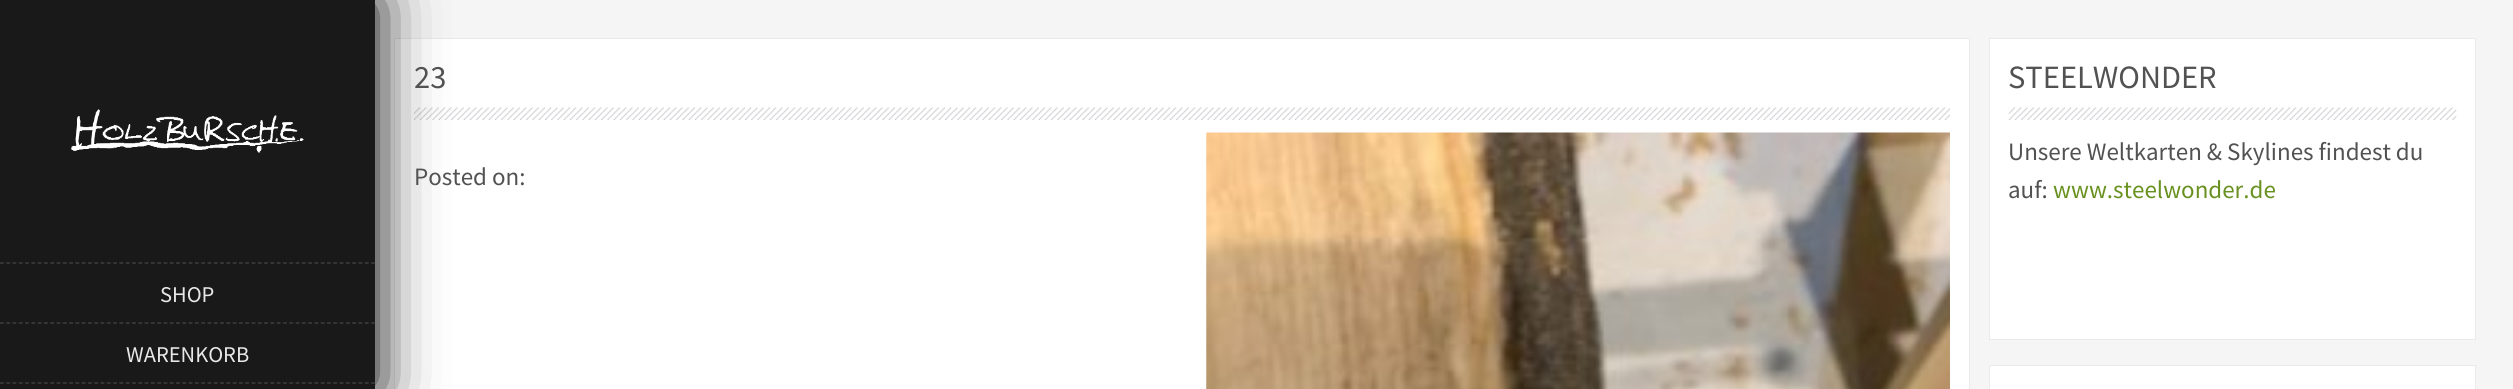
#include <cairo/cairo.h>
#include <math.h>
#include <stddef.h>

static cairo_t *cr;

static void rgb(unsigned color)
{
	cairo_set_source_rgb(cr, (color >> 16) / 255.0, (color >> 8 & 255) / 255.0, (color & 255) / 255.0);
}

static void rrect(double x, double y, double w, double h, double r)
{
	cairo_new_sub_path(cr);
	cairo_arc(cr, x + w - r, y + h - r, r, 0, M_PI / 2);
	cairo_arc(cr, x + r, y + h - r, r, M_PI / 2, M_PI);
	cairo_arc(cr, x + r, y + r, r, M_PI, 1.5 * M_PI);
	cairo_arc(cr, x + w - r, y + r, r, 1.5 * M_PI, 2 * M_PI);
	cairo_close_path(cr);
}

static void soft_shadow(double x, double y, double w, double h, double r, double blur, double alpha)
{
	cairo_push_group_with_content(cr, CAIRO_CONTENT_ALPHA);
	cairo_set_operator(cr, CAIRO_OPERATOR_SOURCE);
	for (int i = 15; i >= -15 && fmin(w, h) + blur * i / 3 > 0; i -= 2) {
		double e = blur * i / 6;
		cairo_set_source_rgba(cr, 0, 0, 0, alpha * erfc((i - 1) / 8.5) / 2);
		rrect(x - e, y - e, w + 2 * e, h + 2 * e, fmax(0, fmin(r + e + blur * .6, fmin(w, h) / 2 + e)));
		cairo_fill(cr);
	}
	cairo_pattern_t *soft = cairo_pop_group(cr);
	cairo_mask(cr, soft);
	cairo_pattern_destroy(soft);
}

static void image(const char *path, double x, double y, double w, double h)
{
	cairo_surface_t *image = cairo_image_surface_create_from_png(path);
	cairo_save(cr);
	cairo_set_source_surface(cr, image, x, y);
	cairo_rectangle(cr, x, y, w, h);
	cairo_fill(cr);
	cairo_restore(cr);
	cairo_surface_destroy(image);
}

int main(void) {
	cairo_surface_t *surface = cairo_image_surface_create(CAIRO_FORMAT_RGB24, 2513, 389);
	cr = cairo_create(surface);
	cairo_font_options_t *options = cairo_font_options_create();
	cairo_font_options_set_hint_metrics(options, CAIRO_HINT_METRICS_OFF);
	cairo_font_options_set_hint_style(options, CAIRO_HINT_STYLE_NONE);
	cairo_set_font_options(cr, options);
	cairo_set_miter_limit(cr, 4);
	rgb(0xf5f5f5);
	cairo_paint(cr);
	rgb(0xffffff);
	cairo_rectangle(cr, 394.5, 38.5, 1575, 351);
	cairo_fill_preserve(cr);
	rgb(0xeaeaea);
	cairo_set_line_width(cr, 1);
	cairo_stroke(cr);
	image("img/1.png", 413, 107, 1537, 13);
	image("img/2.png", 1206, 132, 744, 257);
	rgb(0xffffff);
	cairo_rectangle(cr, 1989.5, 38.5, 486, 301);
	cairo_fill_preserve(cr);
	rgb(0xeaeaea);
	cairo_stroke(cr);
	image("img/3.png", 2008, 107, 449, 13);
	rgb(0xffffff);
	cairo_rectangle(cr, 1989.5, 365.5, 486, 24);
	cairo_fill_preserve(cr);
	rgb(0xeaeaea);
	cairo_stroke(cr);
	rgb(0x000000);
	soft_shadow(0, 0, 375, 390, 0, 31, 1);
	rgb(0x191919);
	cairo_rectangle(cr, 0, 0, 375, 389);
	cairo_fill(cr);
	image("img/4.png", 71, 109, 233, 44);
	cairo_new_path(cr);
	cairo_move_to(cr, 0, 263);
	cairo_line_to(cr, 375, 263);
	rgb(0x464646);
	cairo_set_line_width(cr, 1.2);
	cairo_set_dash(cr, (double[]){3.75, 2.54}, 2, 0);
	cairo_stroke(cr);
	cairo_new_path(cr);
	cairo_move_to(cr, 0, 323);
	cairo_line_to(cr, 375, 323);
	cairo_stroke(cr);
	cairo_new_path(cr);
	cairo_move_to(cr, 0, 383);
	cairo_line_to(cr, 375, 383);
	cairo_stroke(cr);
	cairo_select_font_face(cr, "Source Sans Pro", CAIRO_FONT_SLANT_NORMAL, CAIRO_FONT_WEIGHT_NORMAL);
	cairo_set_font_size(cr, 32.5);
	rgb(0x525252);
	cairo_move_to(cr, 414, 88);
	cairo_show_text(cr, "23");
	cairo_set_font_size(cr, 25);
	cairo_move_to(cr, 414, 185);
	cairo_show_text(cr, "Posted on:");
	cairo_set_font_size(cr, 32.5);
	cairo_move_to(cr, 2008, 88);
	cairo_show_text(cr, "STEELWONDER");
	cairo_set_font_size(cr, 25);
	cairo_move_to(cr, 2008, 160);
	cairo_show_text(cr, "Unsere Weltkarten & Skylines findest du");
	cairo_move_to(cr, 2008, 198);
	cairo_show_text(cr, "auf:");
	rgb(0x699120);
	cairo_move_to(cr, 2053, 198);
	cairo_show_text(cr, "www.steelwonder.de");
	cairo_set_font_size(cr, 22.5);
	rgb(0xe8e8e8);
	cairo_move_to(cr, 160, 302);
	cairo_show_text(cr, "SHOP");
	cairo_move_to(cr, 126, 362);
	cairo_show_text(cr, "WARENKORB");
	cairo_surface_write_to_png(surface, "page.png");
	cairo_font_options_destroy(options);
	cairo_destroy(cr);
	cairo_surface_destroy(surface);
	return 0;
}
